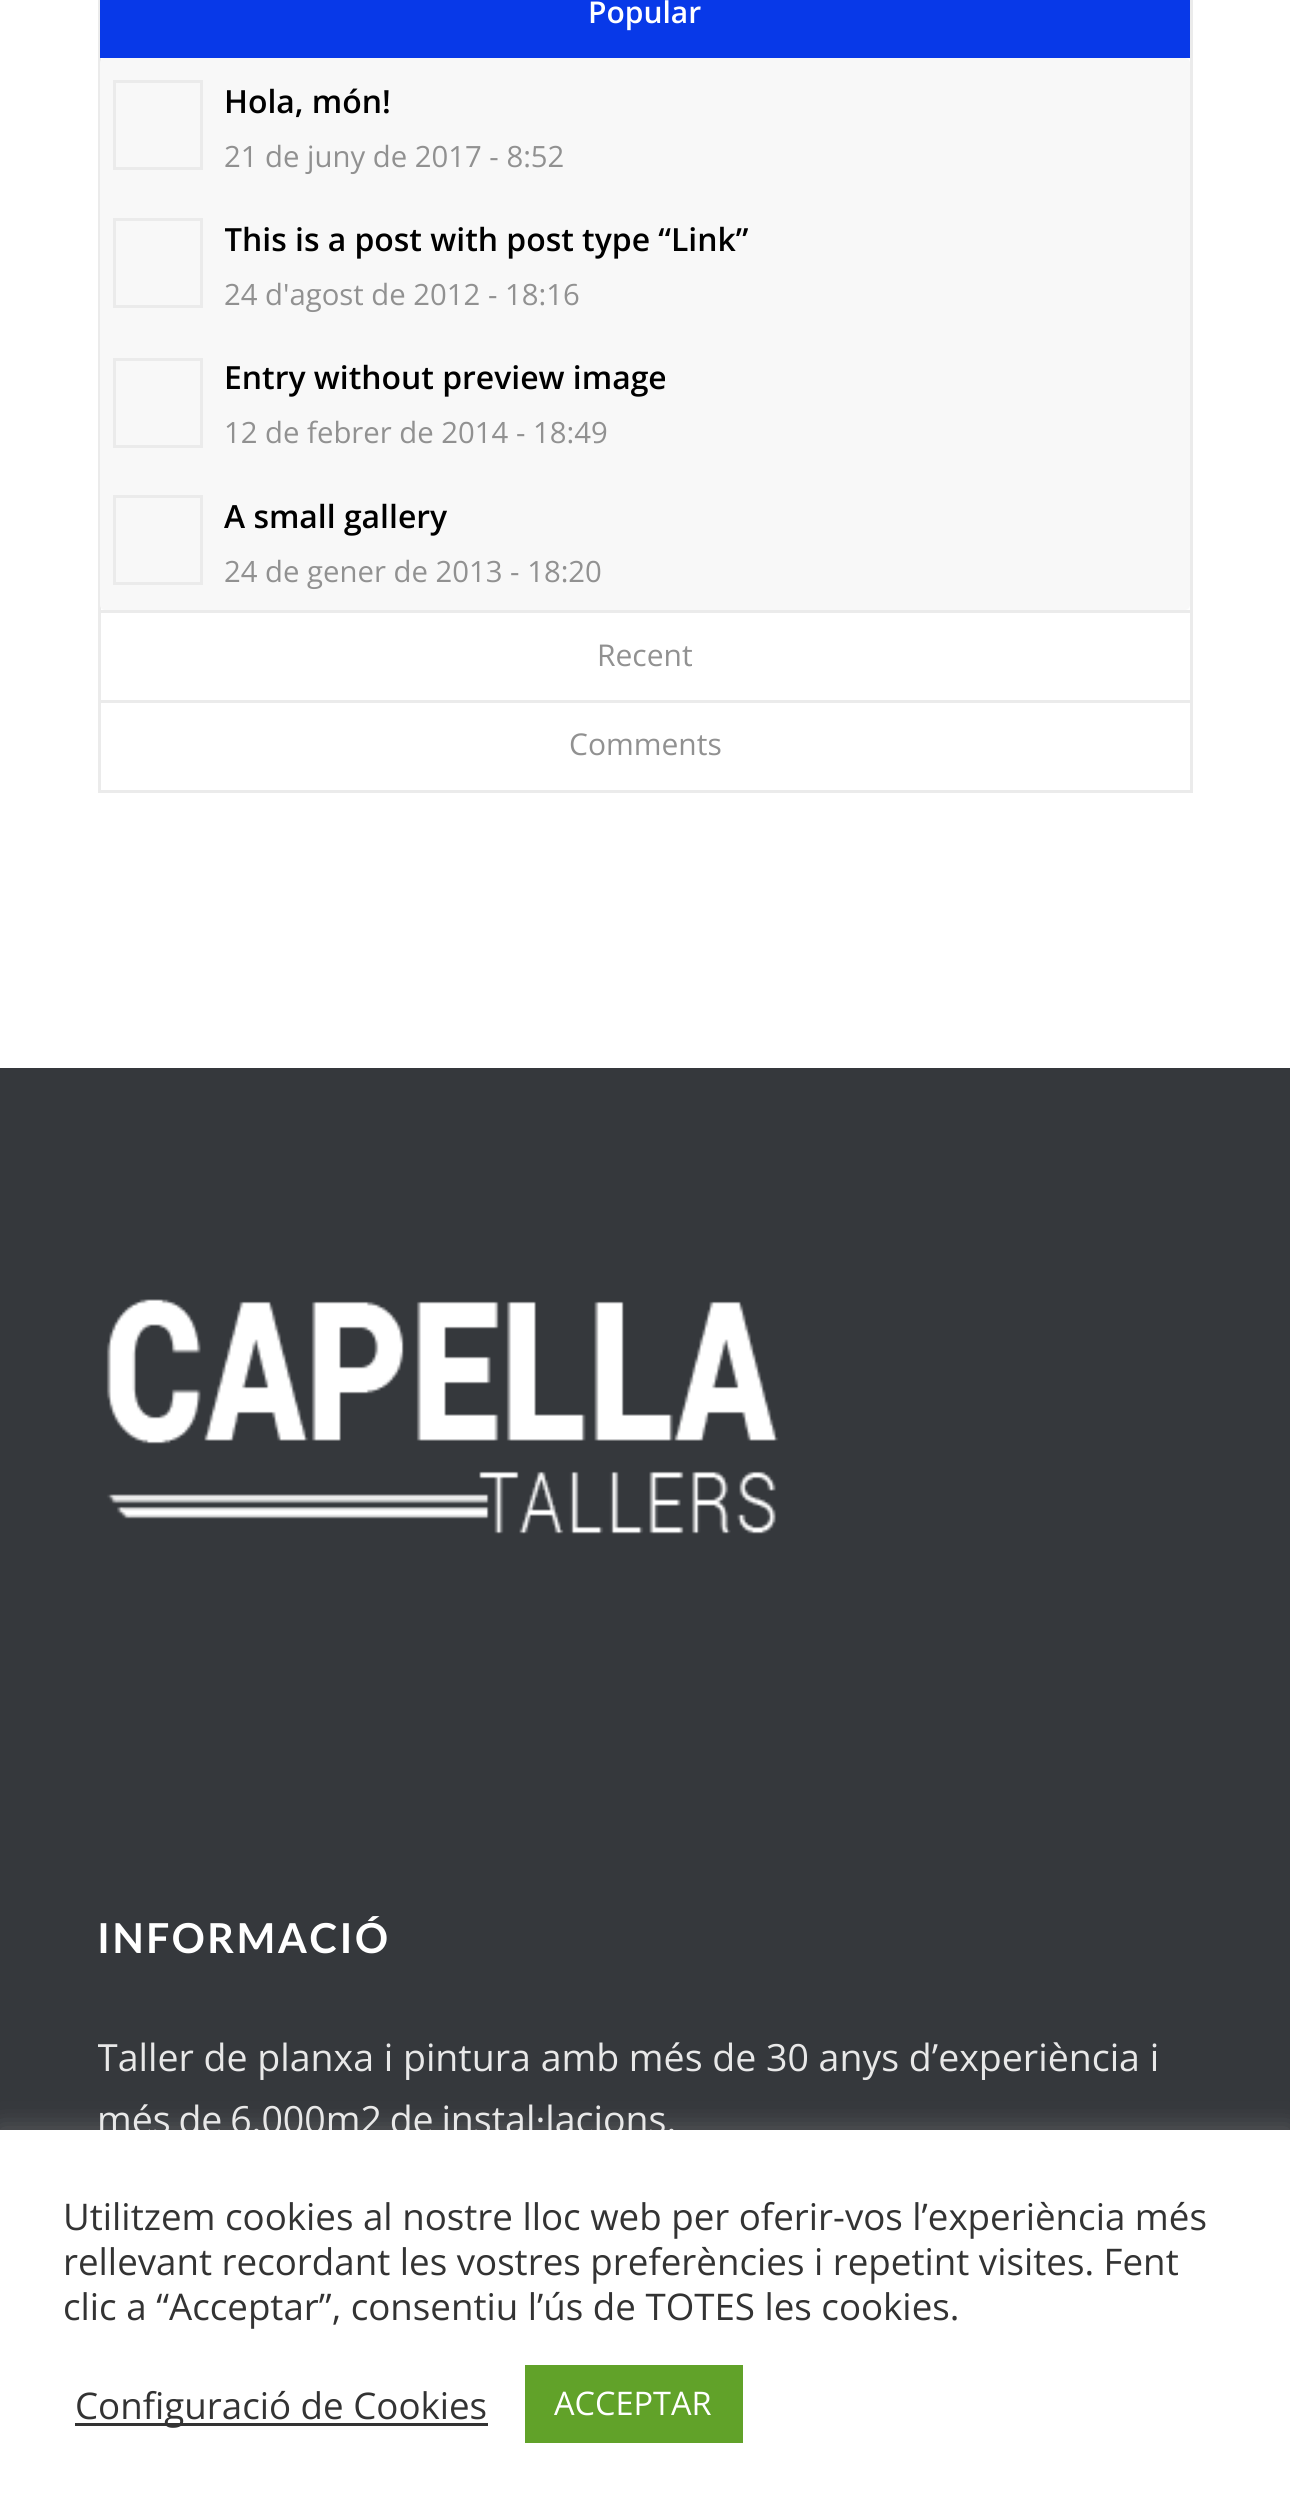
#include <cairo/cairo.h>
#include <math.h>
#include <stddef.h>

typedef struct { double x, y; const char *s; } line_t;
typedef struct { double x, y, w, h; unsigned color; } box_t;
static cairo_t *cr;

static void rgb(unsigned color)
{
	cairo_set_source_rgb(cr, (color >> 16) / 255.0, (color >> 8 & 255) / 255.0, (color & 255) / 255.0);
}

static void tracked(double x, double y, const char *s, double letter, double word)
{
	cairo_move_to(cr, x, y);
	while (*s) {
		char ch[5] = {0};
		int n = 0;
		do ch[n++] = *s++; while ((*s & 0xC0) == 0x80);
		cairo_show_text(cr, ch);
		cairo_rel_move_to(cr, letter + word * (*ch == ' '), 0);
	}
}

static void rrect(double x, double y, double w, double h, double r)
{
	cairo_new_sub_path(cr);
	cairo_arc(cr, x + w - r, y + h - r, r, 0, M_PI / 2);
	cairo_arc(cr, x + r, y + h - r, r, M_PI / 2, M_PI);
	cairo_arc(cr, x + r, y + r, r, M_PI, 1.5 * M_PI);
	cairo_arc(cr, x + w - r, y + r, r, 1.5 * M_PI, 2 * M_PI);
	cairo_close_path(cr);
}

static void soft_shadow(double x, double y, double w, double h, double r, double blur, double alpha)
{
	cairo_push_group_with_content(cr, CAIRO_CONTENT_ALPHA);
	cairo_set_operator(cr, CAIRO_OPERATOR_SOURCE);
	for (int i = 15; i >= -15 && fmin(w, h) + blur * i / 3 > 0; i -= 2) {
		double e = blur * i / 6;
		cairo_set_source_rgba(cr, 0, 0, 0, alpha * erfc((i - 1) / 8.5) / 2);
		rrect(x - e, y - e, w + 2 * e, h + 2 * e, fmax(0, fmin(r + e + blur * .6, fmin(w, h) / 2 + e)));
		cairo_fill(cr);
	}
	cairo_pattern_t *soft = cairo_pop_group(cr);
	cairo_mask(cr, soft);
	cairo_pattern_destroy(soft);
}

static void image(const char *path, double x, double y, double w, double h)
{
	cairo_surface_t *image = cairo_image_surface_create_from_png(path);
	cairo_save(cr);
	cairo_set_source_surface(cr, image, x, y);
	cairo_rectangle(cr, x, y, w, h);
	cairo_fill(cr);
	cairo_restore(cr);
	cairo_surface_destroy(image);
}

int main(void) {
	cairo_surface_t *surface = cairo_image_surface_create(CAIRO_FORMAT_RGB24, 1290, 2516);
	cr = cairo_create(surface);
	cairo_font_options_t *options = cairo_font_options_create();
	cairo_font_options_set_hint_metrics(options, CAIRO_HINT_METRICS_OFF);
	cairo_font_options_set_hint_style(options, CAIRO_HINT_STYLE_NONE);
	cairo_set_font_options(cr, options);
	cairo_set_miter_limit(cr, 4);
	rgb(0xffffff);
	cairo_paint(cr);
	{
		static const box_t items[] = {
			{1190, 0, 3, 793, 0xebebeb},
			{98, 790, 1095, 3, 0xebebeb},
			{98, 0, 3, 793, 0xebebeb},
			{100, 0, 1090, 58, 0x0839e8},
		};
		for (size_t i = 0; i < sizeof items / sizeof *items; i++) {
			rgb(items[i].color);
			cairo_rectangle(cr, items[i].x, items[i].y, items[i].w, items[i].h);
			cairo_fill(cr);
		}
	}
	rgb(0xf8f8f8);
	rrect(100, 58, 1090, 552, 5);
	cairo_fill(cr);
	cairo_rectangle(cr, 114.5, 81.5, 87, 87);
	rgb(0xebebeb);
	cairo_set_line_width(cr, 3);
	cairo_stroke(cr);
	cairo_rectangle(cr, 114.5, 219.5, 87, 87);
	cairo_stroke(cr);
	cairo_rectangle(cr, 114.5, 359.5, 87, 87);
	cairo_stroke(cr);
	cairo_rectangle(cr, 114.5, 496.5, 87, 87);
	cairo_stroke(cr);
	{
		static const box_t items[] = {
			{100, 610, 1090, 3, 0xebebeb},
			{100, 700, 1090, 3, 0xebebeb},
			{0, 1068, 1290, 1062, 0x35383c},
		};
		for (size_t i = 0; i < sizeof items / sizeof *items; i++) {
			rgb(items[i].color);
			cairo_rectangle(cr, items[i].x, items[i].y, items[i].w, items[i].h);
			cairo_fill(cr);
		}
	}
	image("img/1.png", 106, 1299, 673, 235);
	rgb(0xacabab);
	soft_shadow(0, 2128, 1290, 387, 0, 12.5, 0.3);
	cairo_select_font_face(cr, "Open Sans SemiBold", CAIRO_FONT_SLANT_NORMAL, CAIRO_FONT_WEIGHT_NORMAL);
	cairo_set_font_size(cr, 30);
	rgb(0xffffff);
	cairo_move_to(cr, 588, 23);
	cairo_show_text(cr, "Popular");
	cairo_set_font_size(cr, 31.9);
	rgb(0x000000);
	cairo_move_to(cr, 224, 113);
	cairo_show_text(cr, "Hola, món!");
	cairo_select_font_face(cr, "Open Sans", CAIRO_FONT_SLANT_NORMAL, CAIRO_FONT_WEIGHT_NORMAL);
	cairo_set_font_size(cr, 29.3);
	rgb(0x919191);
	cairo_move_to(cr, 224, 167);
	cairo_show_text(cr, "21 de juny de 2017 - 8:52");
	cairo_save(cr);
	cairo_rectangle(cr, 225, 213, 953, 110);
	cairo_clip(cr);
	cairo_select_font_face(cr, "Open Sans SemiBold", CAIRO_FONT_SLANT_NORMAL, CAIRO_FONT_WEIGHT_NORMAL);
	cairo_set_font_size(cr, 31.9);
	rgb(0x000000);
	cairo_move_to(cr, 224, 251);
	cairo_show_text(cr, "This is a post with post type “Link”");
	cairo_restore(cr);
	cairo_move_to(cr, 224, 305);
	cairo_show_text(cr, "24 d'agost de 2012 - 18:16");
	cairo_select_font_face(cr, "Open Sans SemiBold", CAIRO_FONT_SLANT_NORMAL, CAIRO_FONT_WEIGHT_NORMAL);
	cairo_set_font_size(cr, 31.9);
	rgb(0x000000);
	cairo_move_to(cr, 224, 389);
	cairo_show_text(cr, "Entry without preview image");
	cairo_select_font_face(cr, "Open Sans", CAIRO_FONT_SLANT_NORMAL, CAIRO_FONT_WEIGHT_NORMAL);
	cairo_set_font_size(cr, 29.3);
	rgb(0x919191);
	cairo_move_to(cr, 224, 443);
	cairo_show_text(cr, "12 de febrer de 2014 - 18:49");
	cairo_select_font_face(cr, "Open Sans SemiBold", CAIRO_FONT_SLANT_NORMAL, CAIRO_FONT_WEIGHT_NORMAL);
	cairo_set_font_size(cr, 31.9);
	rgb(0x000000);
	cairo_move_to(cr, 224, 528);
	cairo_show_text(cr, "A small gallery");
	cairo_select_font_face(cr, "Open Sans", CAIRO_FONT_SLANT_NORMAL, CAIRO_FONT_WEIGHT_NORMAL);
	cairo_set_font_size(cr, 29.3);
	rgb(0x919191);
	cairo_move_to(cr, 224, 582);
	cairo_show_text(cr, "24 de gener de 2013 - 18:20");
	cairo_set_font_size(cr, 30);
	cairo_move_to(cr, 597, 666);
	cairo_show_text(cr, "Recent");
	cairo_move_to(cr, 569, 755);
	cairo_show_text(cr, "Comments");
	cairo_select_font_face(cr, "Lato", CAIRO_FONT_SLANT_NORMAL, CAIRO_FONT_WEIGHT_BOLD);
	cairo_set_font_size(cr, 41.25);
	rgb(0xffffff);
	tracked(97, 1953, "INFORMACIÓ", 2.5, 0);
	cairo_save(cr);
	cairo_rectangle(cr, 98, 1853, 1095, 422);
	cairo_clip(cr);
	cairo_select_font_face(cr, "Open Sans", CAIRO_FONT_SLANT_NORMAL, CAIRO_FONT_WEIGHT_NORMAL);
	cairo_set_font_size(cr, 37.5);
	rgb(0xe8e8e8);
	cairo_move_to(cr, 97, 2071);
	cairo_show_text(cr, "Taller de planxa i pintura amb més de 30 anys d’experiència i");
	cairo_restore(cr);
	cairo_select_font_face(cr, "Open Sans", CAIRO_FONT_SLANT_NORMAL, CAIRO_FONT_WEIGHT_NORMAL);
	cairo_set_font_size(cr, 37.5);
	rgb(0xe8e8e8);
	tracked(97, 2133, "més de 6.000m2 de instal·lacions.", 0, -2);
	rgb(0xffffff);
	cairo_rectangle(cr, 0, 2130, 1290, 386);
	cairo_fill(cr);
	cairo_set_font_size(cr, 36.7);
	rgb(0x333333);
	{
		static const line_t items[] = {
			{63, 2230, "Utilitzem cookies al nostre lloc web per oferir-vos l’experiència més"},
			{63, 2275, "rellevant recordant les vostres preferències i repetint visites. Fent"},
			{63, 2320, "clic a “Acceptar”, consentiu l’ús de TOTES les cookies."},
		};
		for (size_t i = 0; i < sizeof items / sizeof *items; i++) {
			cairo_move_to(cr, items[i].x, items[i].y);
			cairo_show_text(cr, items[i].s);
		}
	}
	cairo_rectangle(cr, 75, 2423, 413, 3);
	cairo_fill(cr);
	cairo_move_to(cr, 75, 2419);
	cairo_show_text(cr, "Configuració de Cookies");
	rgb(0x61a229);
	cairo_rectangle(cr, 525, 2365, 218, 78);
	cairo_fill(cr);
	cairo_set_font_size(cr, 32.5);
	rgb(0xffffff);
	cairo_move_to(cr, 554, 2415);
	cairo_show_text(cr, "ACCEPTAR");
	cairo_surface_write_to_png(surface, "page.png");
	cairo_font_options_destroy(options);
	cairo_destroy(cr);
	cairo_surface_destroy(surface);
	return 0;
}
